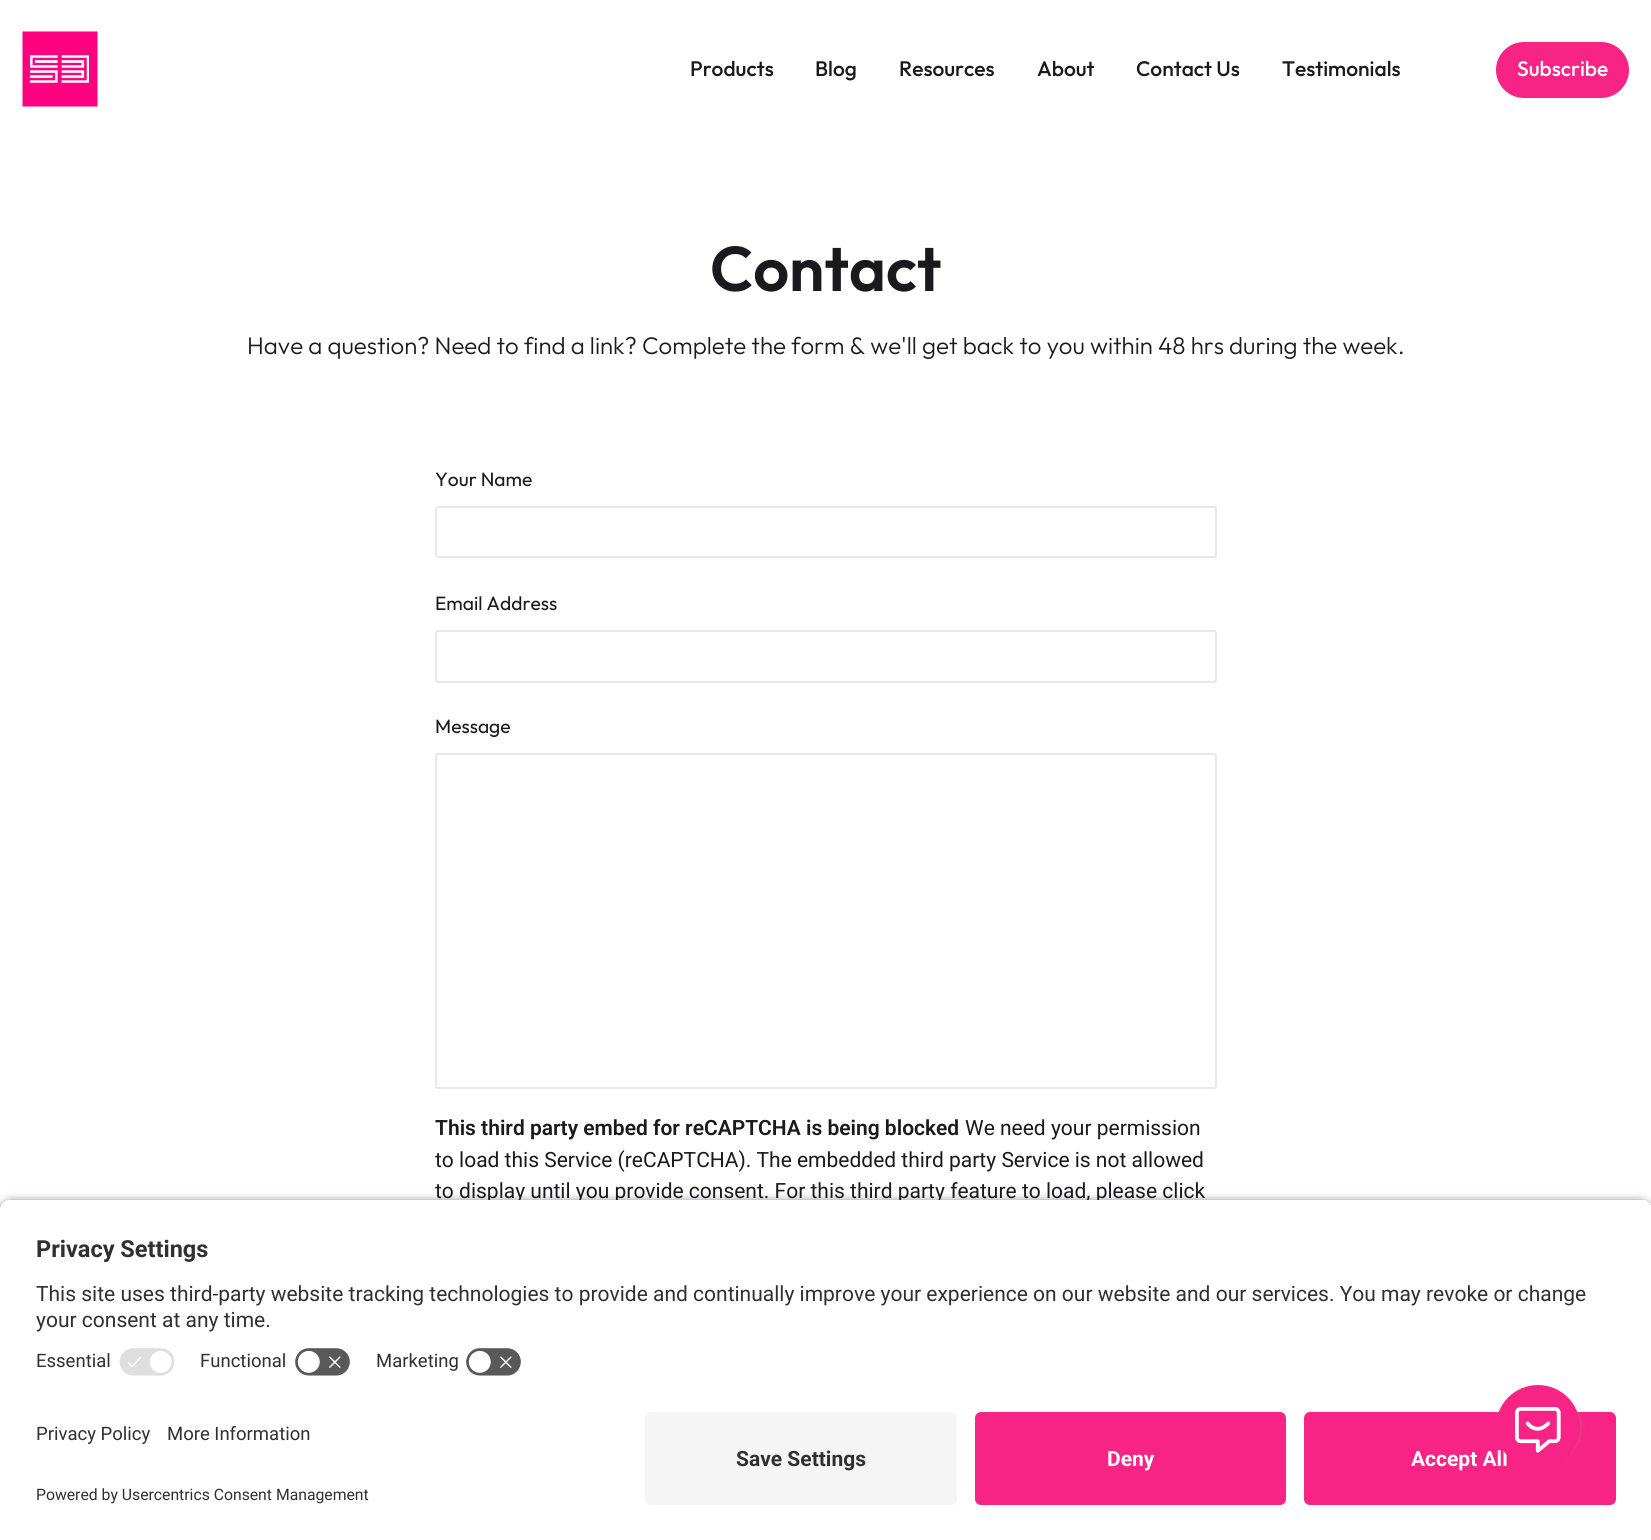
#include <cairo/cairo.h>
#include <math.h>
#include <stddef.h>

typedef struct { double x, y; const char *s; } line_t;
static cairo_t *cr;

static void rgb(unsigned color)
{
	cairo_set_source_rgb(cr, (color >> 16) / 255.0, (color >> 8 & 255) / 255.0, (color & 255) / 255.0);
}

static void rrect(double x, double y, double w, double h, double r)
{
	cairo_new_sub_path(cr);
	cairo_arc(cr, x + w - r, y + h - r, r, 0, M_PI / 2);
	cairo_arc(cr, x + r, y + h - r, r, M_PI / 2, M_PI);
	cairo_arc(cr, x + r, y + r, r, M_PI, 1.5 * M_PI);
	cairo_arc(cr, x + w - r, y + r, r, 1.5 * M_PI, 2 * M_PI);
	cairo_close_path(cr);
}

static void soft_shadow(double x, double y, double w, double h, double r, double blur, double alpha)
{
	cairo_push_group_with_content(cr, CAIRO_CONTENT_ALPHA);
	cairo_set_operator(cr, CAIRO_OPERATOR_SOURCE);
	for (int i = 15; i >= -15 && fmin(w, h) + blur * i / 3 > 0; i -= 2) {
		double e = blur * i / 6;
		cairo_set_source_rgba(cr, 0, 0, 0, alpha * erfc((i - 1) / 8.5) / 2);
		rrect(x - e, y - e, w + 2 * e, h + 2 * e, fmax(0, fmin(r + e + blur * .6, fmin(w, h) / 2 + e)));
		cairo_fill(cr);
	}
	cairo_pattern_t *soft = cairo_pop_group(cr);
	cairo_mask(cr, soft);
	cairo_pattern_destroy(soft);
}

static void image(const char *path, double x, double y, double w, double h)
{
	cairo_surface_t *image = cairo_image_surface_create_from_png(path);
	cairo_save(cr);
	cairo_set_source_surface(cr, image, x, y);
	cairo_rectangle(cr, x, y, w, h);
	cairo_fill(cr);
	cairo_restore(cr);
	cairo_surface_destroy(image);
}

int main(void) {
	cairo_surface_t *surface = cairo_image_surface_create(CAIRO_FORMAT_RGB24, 1651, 1540);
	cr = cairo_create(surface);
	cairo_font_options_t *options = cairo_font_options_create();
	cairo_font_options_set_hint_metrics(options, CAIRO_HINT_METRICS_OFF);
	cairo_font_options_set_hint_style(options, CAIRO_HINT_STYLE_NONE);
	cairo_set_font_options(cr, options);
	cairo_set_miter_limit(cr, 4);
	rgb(0xffffff);
	cairo_paint(cr);
	image("img/1.png", 22, 31, 76, 76);
	rgb(0xf72485);
	rrect(1496, 42, 133, 56, 28);
	cairo_fill(cr);
	rrect(436, 507, 780, 50, 2);
	rgb(0xe8e8e9);
	cairo_stroke(cr);
	rrect(436, 631, 780, 51, 2);
	cairo_stroke(cr);
	rrect(436, 754, 780, 334, 2);
	cairo_stroke(cr);
	rgb(0x000000);
	soft_shadow(0, 1203, 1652, 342, 12, 5, 0.8);
	rgb(0xffffff);
	cairo_rectangle(cr, 0, 1400, 1651, 140);
	cairo_fill(cr);
	rgb(0xf5f5f5);
	rrect(645, 1412, 312, 93, 6);
	cairo_fill(cr);
	rgb(0xf72485);
	rrect(975, 1412, 311, 93, 6);
	cairo_fill(cr);
	rrect(1304, 1412, 312, 93, 6);
	cairo_fill(cr);
	cairo_select_font_face(cr, "Outfit Medium", CAIRO_FONT_SLANT_NORMAL, CAIRO_FONT_WEIGHT_NORMAL);
	cairo_set_font_size(cr, 21);
	rgb(0x1a1a1e);
	{
		static const line_t items[] = {
			{690, 76, "Products"},
			{815, 76, "Blog"},
			{899, 76, "Resources"},
			{1037, 76, "About"},
			{1136, 76, "Contact Us"},
			{1282, 76, "Testimonials"},
		};
		for (size_t i = 0; i < sizeof items / sizeof *items; i++) {
			cairo_move_to(cr, items[i].x, items[i].y);
			cairo_show_text(cr, items[i].s);
		}
	}
	rgb(0xffffff);
	cairo_move_to(cr, 1517, 76);
	cairo_show_text(cr, "Subscribe");
	cairo_select_font_face(cr, "Outfit SemiBold", CAIRO_FONT_SLANT_NORMAL, CAIRO_FONT_WEIGHT_NORMAL);
	cairo_set_font_size(cr, 63);
	rgb(0x1a1a1e);
	cairo_move_to(cr, 710, 291);
	cairo_show_text(cr, "Contact");
	cairo_select_font_face(cr, "Outfit Light", CAIRO_FONT_SLANT_NORMAL, CAIRO_FONT_WEIGHT_NORMAL);
	cairo_set_font_size(cr, 24);
	cairo_move_to(cr, 247, 354);
	cairo_show_text(cr, "Have a question? Need to find a link? Complete the form & we'll get back to you within 48 hrs during the week.");
	cairo_select_font_face(cr, "Outfit", CAIRO_FONT_SLANT_NORMAL, CAIRO_FONT_WEIGHT_NORMAL);
	cairo_set_font_size(cr, 19.25);
	{
		static const line_t items[] = {
			{435, 486, "Your Name"},
			{435, 610, "Email Address"},
			{435, 733, "Message"},
		};
		for (size_t i = 0; i < sizeof items / sizeof *items; i++) {
			cairo_move_to(cr, items[i].x, items[i].y);
			cairo_show_text(cr, items[i].s);
		}
	}
	cairo_select_font_face(cr, "Roboto SemiBold", CAIRO_FONT_SLANT_NORMAL, CAIRO_FONT_WEIGHT_NORMAL);
	cairo_set_font_size(cr, 21);
	cairo_move_to(cr, 435, 1135);
	cairo_show_text(cr, "This third party embed for reCAPTCHA is being blocked");
	cairo_select_font_face(cr, "Roboto", CAIRO_FONT_SLANT_NORMAL, CAIRO_FONT_WEIGHT_NORMAL);
	{
		static const line_t items[] = {
			{965, 1135, "We need your permission"},
			{435, 1167, "to load this Service (reCAPTCHA). The embedded third party Service is not allowed"},
			{435, 1198, "to display until you provide consent. For this third party feature to load, please click"},
		};
		for (size_t i = 0; i < sizeof items / sizeof *items; i++) {
			cairo_move_to(cr, items[i].x, items[i].y);
			cairo_show_text(cr, items[i].s);
		}
	}
	cairo_save(cr);
	cairo_new_path(cr);
	cairo_move_to(cr, 12, 1199);
	cairo_line_to(cr, 1640, 1199);
	cairo_curve_to(cr, 1646.5, 1199, 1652, 1204.5, 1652, 1211);
	cairo_line_to(cr, 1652, 1400);
	cairo_line_to(cr, 0, 1400);
	cairo_line_to(cr, 0, 1211);
	cairo_curve_to(cr, 0, 1204.5, 5.5, 1199, 12, 1199);
	cairo_close_path(cr);
	cairo_clip(cr);
	rgb(0xffffff);
	cairo_rectangle(cr, 0, 1200, 1651, 200);
	cairo_fill(cr);
	cairo_rectangle(cr, 0, 1200, 1651, 140);
	cairo_fill(cr);
	cairo_restore(cr);
	cairo_select_font_face(cr, "Roboto", CAIRO_FONT_SLANT_NORMAL, CAIRO_FONT_WEIGHT_BOLD);
	cairo_set_font_size(cr, 23.5);
	rgb(0x303030);
	cairo_move_to(cr, 36, 1257);
	cairo_show_text(cr, "Privacy Settings");
	cairo_select_font_face(cr, "Roboto", CAIRO_FONT_SLANT_NORMAL, CAIRO_FONT_WEIGHT_NORMAL);
	cairo_set_font_size(cr, 21);
	cairo_move_to(cr, 36, 1301);
	cairo_show_text(cr, "This site uses third-party website tracking technologies to provide and continually improve your experience on our website and our services. You may revoke or change");
	cairo_move_to(cr, 36, 1327);
	cairo_show_text(cr, "your consent at any time.");
	cairo_set_font_size(cr, 18.5);
	cairo_move_to(cr, 36, 1367);
	cairo_show_text(cr, "Essential");
	image("img/2.png", 119, 1348, 56, 28);
	cairo_move_to(cr, 200, 1367);
	cairo_show_text(cr, "Functional");
	image("img/3.png", 295, 1348, 55, 28);
	cairo_move_to(cr, 376, 1367);
	cairo_show_text(cr, "Marketing");
	image("img/3.png", 466, 1348, 55, 28);
	cairo_move_to(cr, 36, 1440);
	cairo_show_text(cr, "Privacy Policy");
	cairo_move_to(cr, 167, 1440);
	cairo_show_text(cr, "More Information");
	cairo_set_font_size(cr, 15.75);
	cairo_move_to(cr, 36, 1500);
	cairo_show_text(cr, "Powered by Usercentrics Consent Management");
	cairo_select_font_face(cr, "Roboto", CAIRO_FONT_SLANT_NORMAL, CAIRO_FONT_WEIGHT_BOLD);
	cairo_set_font_size(cr, 21);
	cairo_move_to(cr, 736, 1466);
	cairo_show_text(cr, "Save Settings");
	rgb(0xffffff);
	cairo_move_to(cr, 1107, 1466);
	cairo_show_text(cr, "Deny");
	cairo_move_to(cr, 1411, 1466);
	cairo_show_text(cr, "Accept All");
	rgb(0x9f9c9c);
	soft_shadow(1509, 1392, 69, 69, 34.5, 3, 1);
	rgb(0xf72485);
	cairo_arc(cr, 1538, 1427, 42, 0, 2 * M_PI);
	cairo_fill(cr);
	image("img/4.png", 1515, 1407, 46, 46);
	cairo_surface_write_to_png(surface, "page.png");
	cairo_font_options_destroy(options);
	cairo_destroy(cr);
	cairo_surface_destroy(surface);
	return 0;
}
